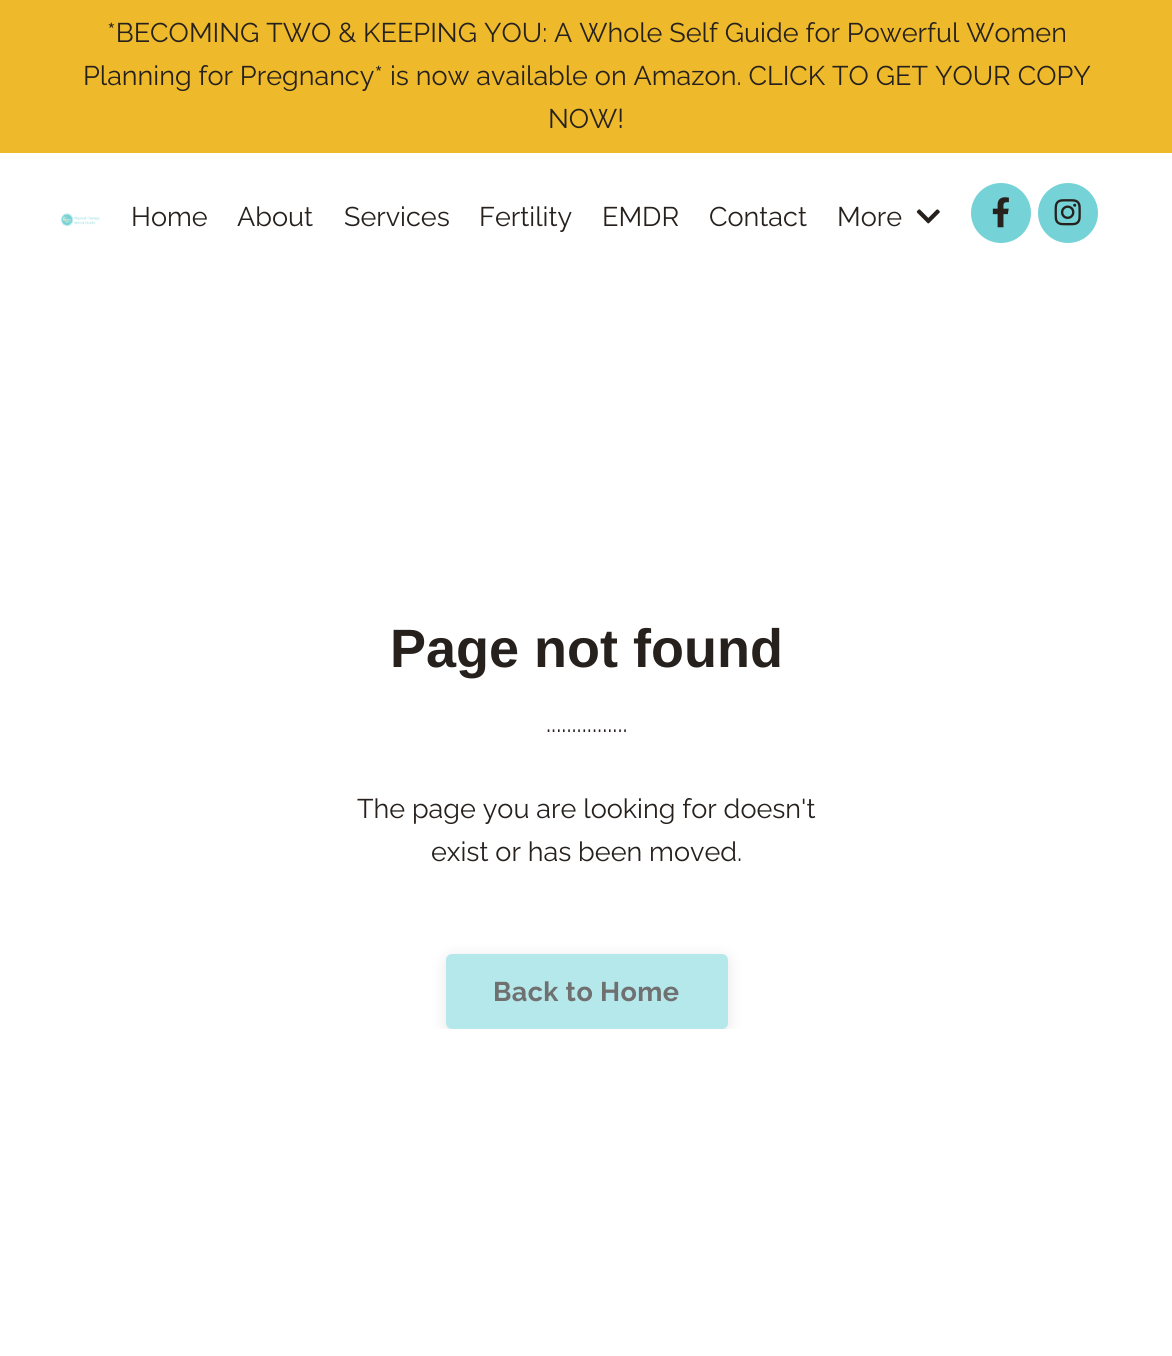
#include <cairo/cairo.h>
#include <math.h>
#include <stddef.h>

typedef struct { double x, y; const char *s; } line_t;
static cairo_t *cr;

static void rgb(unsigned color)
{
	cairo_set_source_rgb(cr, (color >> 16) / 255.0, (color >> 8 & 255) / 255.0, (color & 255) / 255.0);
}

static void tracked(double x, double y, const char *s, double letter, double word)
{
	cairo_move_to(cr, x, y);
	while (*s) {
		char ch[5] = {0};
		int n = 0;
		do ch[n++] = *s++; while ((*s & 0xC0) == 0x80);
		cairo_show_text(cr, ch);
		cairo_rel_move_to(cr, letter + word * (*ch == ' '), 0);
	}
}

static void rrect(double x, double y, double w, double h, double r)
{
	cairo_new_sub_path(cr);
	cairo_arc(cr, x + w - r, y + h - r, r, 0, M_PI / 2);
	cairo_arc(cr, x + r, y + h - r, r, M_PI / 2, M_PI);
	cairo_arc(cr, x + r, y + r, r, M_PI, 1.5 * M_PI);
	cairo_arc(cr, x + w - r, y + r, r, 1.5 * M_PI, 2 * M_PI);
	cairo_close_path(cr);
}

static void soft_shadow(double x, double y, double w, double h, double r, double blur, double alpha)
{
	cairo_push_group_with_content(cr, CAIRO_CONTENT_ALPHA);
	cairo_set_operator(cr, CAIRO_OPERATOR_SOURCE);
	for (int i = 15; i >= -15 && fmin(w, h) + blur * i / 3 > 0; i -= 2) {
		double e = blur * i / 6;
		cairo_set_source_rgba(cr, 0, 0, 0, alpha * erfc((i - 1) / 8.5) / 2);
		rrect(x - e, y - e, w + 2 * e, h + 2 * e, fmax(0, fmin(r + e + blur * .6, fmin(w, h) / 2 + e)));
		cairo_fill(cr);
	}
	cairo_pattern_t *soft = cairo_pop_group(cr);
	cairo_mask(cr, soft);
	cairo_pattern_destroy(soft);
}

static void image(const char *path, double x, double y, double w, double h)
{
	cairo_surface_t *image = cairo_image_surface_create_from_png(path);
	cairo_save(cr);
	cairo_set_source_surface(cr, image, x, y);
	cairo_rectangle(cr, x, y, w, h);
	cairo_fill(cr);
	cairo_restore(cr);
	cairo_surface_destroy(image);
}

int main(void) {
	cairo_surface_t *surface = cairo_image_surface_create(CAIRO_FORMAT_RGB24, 1172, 1356);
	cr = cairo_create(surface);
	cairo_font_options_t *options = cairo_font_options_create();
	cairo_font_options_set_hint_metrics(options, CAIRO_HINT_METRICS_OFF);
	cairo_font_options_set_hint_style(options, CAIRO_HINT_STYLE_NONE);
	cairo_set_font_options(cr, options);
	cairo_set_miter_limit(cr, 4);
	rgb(0xffffff);
	cairo_paint(cr);
	rgb(0xeeba2b);
	cairo_rectangle(cr, 0, 0, 1172, 153);
	cairo_fill(cr);
	image("img/1.png", 60, 213, 40, 14);
	image("img/2.png", 916, 209, 24, 15);
	rgb(0x75d2d6);
	cairo_arc(cr, 1001, 213, 30, 0, 2 * M_PI);
	cairo_fill(cr);
	image("img/3.png", 992, 197, 17, 31);
	cairo_arc(cr, 1068, 213, 30, 0, 2 * M_PI);
	cairo_fill(cr);
	image("img/4.png", 1054, 199, 27, 27);
	cairo_save(cr);
	rrect(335, 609, 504, 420, 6);
	cairo_clip(cr);
	rgb(0x000000);
	soft_shadow(446, 957, 282, 75, 6, 7.5, 0.1);
	cairo_restore(cr);
	rgb(0xb5e8eb);
	rrect(447.5, 955.5, 279, 72, 4.5);
	cairo_fill_preserve(cr);
	cairo_set_line_width(cr, 3);
	cairo_stroke(cr);
	cairo_select_font_face(cr, "Raleway", CAIRO_FONT_SLANT_NORMAL, CAIRO_FONT_WEIGHT_NORMAL);
	cairo_set_font_size(cr, 27);
	rgb(0x27211e);
	{
		static const line_t items[] = {
			{107, 42, "*BECOMING TWO & KEEPING YOU: A Whole Self Guide for Powerful Women"},
			{83, 85, "Planning for Pregnancy* is now available on Amazon. CLICK TO GET YOUR COPY"},
			{548, 128, "NOW!"},
			{131, 226, "Home"},
			{237, 226, "About"},
			{344, 226, "Services"},
			{479, 226, "Fertility"},
			{602, 226, "EMDR"},
			{709, 226, "Contact"},
			{837, 226, "More"},
		};
		for (size_t i = 0; i < sizeof items / sizeof *items; i++) {
			cairo_move_to(cr, items[i].x, items[i].y);
			cairo_show_text(cr, items[i].s);
		}
	}
	cairo_select_font_face(cr, "Liberation Sans", CAIRO_FONT_SLANT_NORMAL, CAIRO_FONT_WEIGHT_BOLD);
	cairo_set_font_size(cr, 54);
	cairo_move_to(cr, 390, 667);
	cairo_show_text(cr, "Page not found");
	cairo_select_font_face(cr, "Raleway", CAIRO_FONT_SLANT_NORMAL, CAIRO_FONT_WEIGHT_NORMAL);
	cairo_set_font_size(cr, 27);
	{
		static const line_t items[] = {
			{546, 732, "................"},
			{357, 818, "The page you are looking for doesn't"},
			{431, 861, "exist or has been moved."},
		};
		for (size_t i = 0; i < sizeof items / sizeof *items; i++) {
			cairo_move_to(cr, items[i].x, items[i].y);
			cairo_show_text(cr, items[i].s);
		}
	}
	cairo_select_font_face(cr, "Raleway", CAIRO_FONT_SLANT_NORMAL, CAIRO_FONT_WEIGHT_BOLD);
	rgb(0x707070);
	tracked(493, 1001, "Back to Home", 0.4, 0);
	cairo_surface_write_to_png(surface, "page.png");
	cairo_font_options_destroy(options);
	cairo_destroy(cr);
	cairo_surface_destroy(surface);
	return 0;
}
